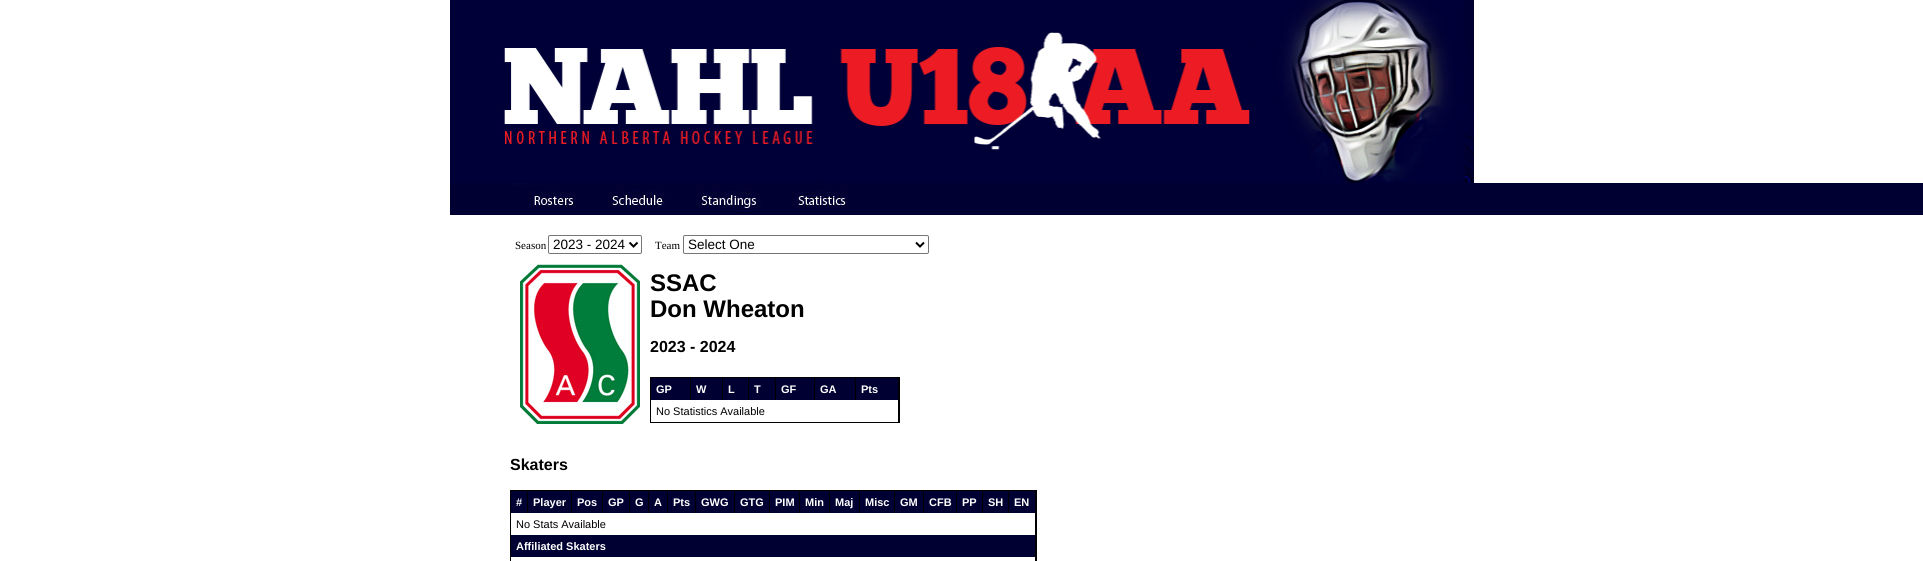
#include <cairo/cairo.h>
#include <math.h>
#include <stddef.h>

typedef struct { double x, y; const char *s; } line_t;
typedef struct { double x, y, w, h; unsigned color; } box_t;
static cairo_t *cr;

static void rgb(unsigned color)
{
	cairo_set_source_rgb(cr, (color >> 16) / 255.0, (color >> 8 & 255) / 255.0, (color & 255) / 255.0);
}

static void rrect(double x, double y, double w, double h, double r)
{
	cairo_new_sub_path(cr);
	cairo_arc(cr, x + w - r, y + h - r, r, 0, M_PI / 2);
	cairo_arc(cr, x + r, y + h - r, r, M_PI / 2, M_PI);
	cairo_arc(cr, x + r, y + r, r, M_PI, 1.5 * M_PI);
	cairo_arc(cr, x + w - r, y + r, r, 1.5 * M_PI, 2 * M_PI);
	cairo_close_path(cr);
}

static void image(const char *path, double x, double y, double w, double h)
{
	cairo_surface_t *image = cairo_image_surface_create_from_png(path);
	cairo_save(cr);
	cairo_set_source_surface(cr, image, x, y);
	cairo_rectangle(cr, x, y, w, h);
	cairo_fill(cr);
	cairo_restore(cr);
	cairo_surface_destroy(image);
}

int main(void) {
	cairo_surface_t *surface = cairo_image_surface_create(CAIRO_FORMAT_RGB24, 1923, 561);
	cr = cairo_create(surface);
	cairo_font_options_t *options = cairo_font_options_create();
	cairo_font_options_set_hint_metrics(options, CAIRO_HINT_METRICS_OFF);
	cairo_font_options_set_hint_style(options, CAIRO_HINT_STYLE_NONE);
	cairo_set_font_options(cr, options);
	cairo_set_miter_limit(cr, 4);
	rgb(0xffffff);
	cairo_paint(cr);
	image("img/1.png", 450, 0, 1024, 183);
	rgb(0x000033);
	cairo_rectangle(cr, 933, 183, 990, 32);
	cairo_fill(cr);
	rgb(0x000032);
	cairo_rectangle(cr, 450, 183, 63, 32);
	cairo_fill(cr);
	image("img/2.png", 513, 183, 81, 32);
	image("img/3.png", 594, 183, 87, 32);
	image("img/4.png", 681, 183, 95, 32);
	image("img/5.png", 776, 183, 93, 32);
	cairo_rectangle(cr, 869, 183, 64, 32);
	cairo_fill(cr);
	rrect(548.5, 235.5, 93, 18, 1.5);
	rgb(0x767676);
	cairo_set_line_width(cr, 1);
	cairo_stroke(cr);
	cairo_new_path(cr);
	cairo_move_to(cr, 629.5, 242.5);
	cairo_line_to(cr, 633.5, 246.5);
	cairo_line_to(cr, 637.5, 242.5);
	rgb(0x000000);
	cairo_set_line_width(cr, 2);
	cairo_stroke(cr);
	rrect(683.5, 235.5, 245, 18, 1.5);
	rgb(0x767676);
	cairo_set_line_width(cr, 1);
	cairo_stroke(cr);
	cairo_new_path(cr);
	cairo_move_to(cr, 916, 242.5);
	cairo_line_to(cr, 920, 246.5);
	cairo_line_to(cr, 924, 242.5);
	rgb(0x000000);
	cairo_set_line_width(cr, 2);
	cairo_stroke(cr);
	image("img/6.png", 520, 264, 120, 160);
	cairo_rectangle(cr, 650.5, 377.5, 249, 45);
	cairo_set_line_width(cr, 1);
	cairo_stroke(cr);
	{
		static const box_t items[] = {
			{651, 378, 39, 22, 0x000032},
			{690, 378, 1, 22, 0x000000},
			{691, 378, 31, 22, 0x000032},
			{722, 378, 1, 22, 0x000000},
			{723, 378, 25, 22, 0x000032},
			{748, 378, 1, 22, 0x000000},
			{749, 378, 26, 22, 0x000032},
			{775, 378, 1, 22, 0x000000},
			{776, 378, 38, 22, 0x000032},
			{814, 378, 1, 22, 0x000000},
			{815, 378, 40, 22, 0x000032},
			{855, 378, 1, 22, 0x000000},
			{856, 378, 42, 22, 0x000032},
			{898, 378, 1, 44, 0x000000},
		};
		for (size_t i = 0; i < sizeof items / sizeof *items; i++) {
			rgb(items[i].color);
			cairo_rectangle(cr, items[i].x, items[i].y, items[i].w, items[i].h);
			cairo_fill(cr);
		}
	}
	cairo_rectangle(cr, 510.5, 490.5, 526, 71);
	cairo_stroke(cr);
	{
		static const box_t items[] = {
			{511, 491, 16, 22, 0x000032},
			{527, 491, 1, 22, 0x000000},
			{528, 491, 43, 22, 0x000032},
			{571, 491, 1, 22, 0x000000},
			{572, 491, 30, 22, 0x000032},
			{602, 491, 1, 22, 0x000000},
			{603, 491, 26, 22, 0x000032},
			{629, 491, 1, 22, 0x000000},
			{630, 491, 18, 22, 0x000032},
			{648, 491, 1, 22, 0x000000},
			{649, 491, 18, 22, 0x000032},
			{667, 491, 1, 22, 0x000000},
			{668, 491, 27, 22, 0x000032},
			{695, 491, 1, 22, 0x000000},
			{696, 491, 38, 22, 0x000032},
			{734, 491, 1, 22, 0x000000},
			{735, 491, 34, 22, 0x000032},
			{769, 491, 1, 22, 0x000000},
			{770, 491, 29, 22, 0x000032},
			{799, 491, 1, 22, 0x000000},
			{800, 491, 29, 22, 0x000032},
			{829, 491, 1, 22, 0x000000},
			{830, 491, 29, 22, 0x000032},
			{859, 491, 1, 22, 0x000000},
			{860, 491, 34, 22, 0x000032},
			{894, 491, 1, 22, 0x000000},
			{895, 491, 28, 22, 0x000032},
			{923, 491, 1, 22, 0x000000},
			{924, 491, 32, 22, 0x000032},
			{956, 491, 1, 22, 0x000000},
			{957, 491, 25, 22, 0x000032},
			{982, 491, 1, 22, 0x000000},
			{983, 491, 25, 22, 0x000032},
			{1008, 491, 1, 22, 0x000000},
			{1009, 491, 26, 22, 0x000032},
			{1035, 491, 1, 70, 0x000000},
			{511, 535, 524, 22, 0x000032},
		};
		for (size_t i = 0; i < sizeof items / sizeof *items; i++) {
			rgb(items[i].color);
			cairo_rectangle(cr, items[i].x, items[i].y, items[i].w, items[i].h);
			cairo_fill(cr);
		}
	}
	cairo_select_font_face(cr, "Liberation Serif", CAIRO_FONT_SLANT_NORMAL, CAIRO_FONT_WEIGHT_NORMAL);
	cairo_set_font_size(cr, 11);
	rgb(0x000000);
	cairo_move_to(cr, 515, 249);
	cairo_show_text(cr, "Season");
	cairo_select_font_face(cr, "Liberation Sans", CAIRO_FONT_SLANT_NORMAL, CAIRO_FONT_WEIGHT_NORMAL);
	cairo_set_font_size(cr, 13.5);
	cairo_move_to(cr, 553, 249);
	cairo_show_text(cr, "2023 - 2024");
	cairo_select_font_face(cr, "Liberation Serif", CAIRO_FONT_SLANT_NORMAL, CAIRO_FONT_WEIGHT_NORMAL);
	cairo_set_font_size(cr, 11);
	cairo_move_to(cr, 655, 249);
	cairo_show_text(cr, "Team");
	cairo_select_font_face(cr, "Liberation Sans", CAIRO_FONT_SLANT_NORMAL, CAIRO_FONT_WEIGHT_NORMAL);
	cairo_set_font_size(cr, 13.5);
	cairo_move_to(cr, 688, 249);
	cairo_show_text(cr, "Select One");
	cairo_select_font_face(cr, "Liberation Sans", CAIRO_FONT_SLANT_NORMAL, CAIRO_FONT_WEIGHT_BOLD);
	cairo_set_font_size(cr, 24);
	cairo_move_to(cr, 650, 291);
	cairo_show_text(cr, "SSAC");
	cairo_move_to(cr, 650, 317);
	cairo_show_text(cr, "Don Wheaton");
	cairo_set_font_size(cr, 16);
	cairo_move_to(cr, 650, 352);
	cairo_show_text(cr, "2023 - 2024");
	cairo_set_font_size(cr, 11);
	rgb(0xffffff);
	{
		static const line_t items[] = {
			{656, 393, "GP"},
			{696, 393, "W"},
			{728, 393, "L"},
			{754, 393, "T"},
			{781, 393, "GF"},
			{820, 393, "GA"},
			{861, 393, "Pts"},
		};
		for (size_t i = 0; i < sizeof items / sizeof *items; i++) {
			cairo_move_to(cr, items[i].x, items[i].y);
			cairo_show_text(cr, items[i].s);
		}
	}
	cairo_select_font_face(cr, "Liberation Sans", CAIRO_FONT_SLANT_NORMAL, CAIRO_FONT_WEIGHT_NORMAL);
	rgb(0x000000);
	cairo_move_to(cr, 656, 415);
	cairo_show_text(cr, "No Statistics Available");
	cairo_select_font_face(cr, "Liberation Sans", CAIRO_FONT_SLANT_NORMAL, CAIRO_FONT_WEIGHT_BOLD);
	cairo_set_font_size(cr, 16);
	cairo_move_to(cr, 510, 470);
	cairo_show_text(cr, "Skaters");
	cairo_set_font_size(cr, 11);
	rgb(0xffffff);
	{
		static const line_t items[] = {
			{516, 506, "#"},
			{533, 506, "Player"},
			{577, 506, "Pos"},
			{608, 506, "GP"},
			{635, 506, "G"},
			{654, 506, "A"},
			{673, 506, "Pts"},
			{701, 506, "GWG"},
			{740, 506, "GTG"},
			{775, 506, "PIM"},
			{805, 506, "Min"},
			{835, 506, "Maj"},
			{865, 506, "Misc"},
			{900, 506, "GM"},
			{929, 506, "CFB"},
			{962, 506, "PP"},
			{988, 506, "SH"},
			{1014, 506, "EN"},
		};
		for (size_t i = 0; i < sizeof items / sizeof *items; i++) {
			cairo_move_to(cr, items[i].x, items[i].y);
			cairo_show_text(cr, items[i].s);
		}
	}
	cairo_select_font_face(cr, "Liberation Sans", CAIRO_FONT_SLANT_NORMAL, CAIRO_FONT_WEIGHT_NORMAL);
	rgb(0x000000);
	cairo_move_to(cr, 516, 528);
	cairo_show_text(cr, "No Stats Available");
	cairo_select_font_face(cr, "Liberation Sans", CAIRO_FONT_SLANT_NORMAL, CAIRO_FONT_WEIGHT_BOLD);
	rgb(0xffffff);
	cairo_move_to(cr, 516, 550);
	cairo_show_text(cr, "Affiliated Skaters");
	cairo_surface_write_to_png(surface, "page.png");
	cairo_font_options_destroy(options);
	cairo_destroy(cr);
	cairo_surface_destroy(surface);
	return 0;
}
